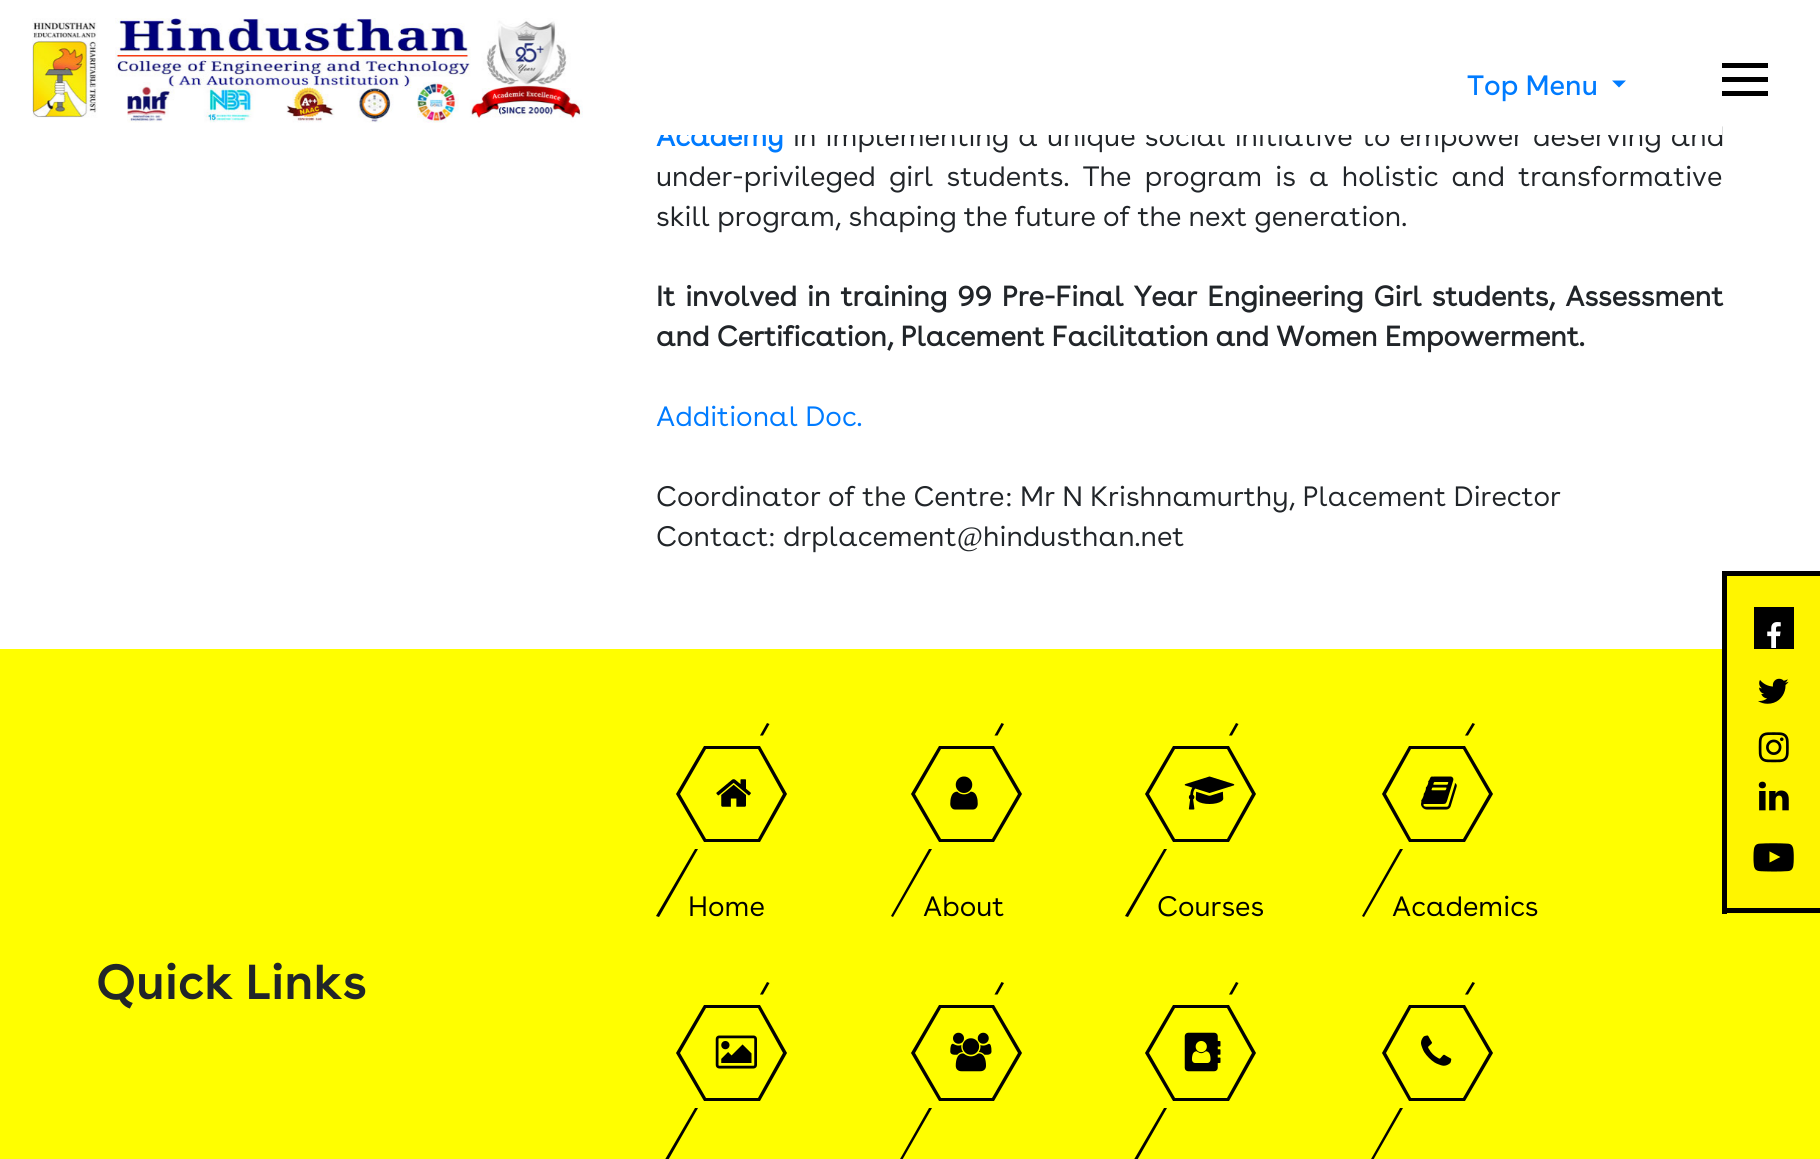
#include <cairo/cairo.h>
#include <math.h>
#include <stddef.h>

typedef struct { double x, y, w, h; unsigned color; } box_t;
static cairo_t *cr;

static void rgb(unsigned color)
{
	cairo_set_source_rgb(cr, (color >> 16) / 255.0, (color >> 8 & 255) / 255.0, (color & 255) / 255.0);
}

static void tracked(double x, double y, const char *s, double letter, double word)
{
	cairo_move_to(cr, x, y);
	while (*s) {
		char ch[5] = {0};
		int n = 0;
		do ch[n++] = *s++; while ((*s & 0xC0) == 0x80);
		cairo_show_text(cr, ch);
		cairo_rel_move_to(cr, letter + word * (*ch == ' '), 0);
	}
}

static void image(const char *path, double x, double y, double w, double h)
{
	cairo_surface_t *image = cairo_image_surface_create_from_png(path);
	cairo_save(cr);
	cairo_set_source_surface(cr, image, x, y);
	cairo_rectangle(cr, x, y, w, h);
	cairo_fill(cr);
	cairo_restore(cr);
	cairo_surface_destroy(image);
}

int main(void) {
	cairo_surface_t *surface = cairo_image_surface_create(CAIRO_FORMAT_RGB24, 1820, 1159);
	cr = cairo_create(surface);
	cairo_font_options_t *options = cairo_font_options_create();
	cairo_font_options_set_hint_metrics(options, CAIRO_HINT_METRICS_OFF);
	cairo_font_options_set_hint_style(options, CAIRO_HINT_STYLE_NONE);
	cairo_set_font_options(cr, options);
	cairo_set_miter_limit(cr, 4);
	rgb(0xffffff);
	cairo_paint(cr);
	image("img/1.png", 32, 18, 551, 105);
	rgb(0x007bff);
	cairo_new_path(cr);
	cairo_move_to(cr, 1612, 80.5);
	cairo_line_to(cr, 1626, 80.5);
	cairo_line_to(cr, 1619, 87.5);
	cairo_close_path(cr);
	cairo_fill(cr);
	{
		static const box_t items[] = {
			{1722, 63, 46, 5, 0x000000},
			{1722, 77, 46, 5, 0x000000},
			{1722, 91, 46, 5, 0x000000},
			{0, 649, 1820, 510, 0xfffe00},
			{1727, 576, 93, 338, 0xfff500},
			{1722, 571, 98, 5, 0x000000},
			{1722, 908, 98, 5, 0x000000},
			{1722, 571, 5, 343, 0x000000},
			{1754, 607, 40, 42, 0x000000},
		};
		for (size_t i = 0; i < sizeof items / sizeof *items; i++) {
			rgb(items[i].color);
			cairo_rectangle(cr, items[i].x, items[i].y, items[i].w, items[i].h);
			cairo_fill(cr);
		}
	}
	image("img/2.png", 1767, 622, 14, 26);
	image("img/3.png", 1758, 678, 31, 26);
	image("img/4.png", 1758, 732, 31, 31);
	image("img/5.png", 1758, 781, 31, 30);
	image("img/6.png", 1753, 843, 41, 29);
	rgb(0x020202);
	cairo_new_path(cr);
	cairo_move_to(cr, 763, 735.5);
	cairo_line_to(cr, 769.5, 724);
	cairo_line_to(cr, 767, 723);
	cairo_line_to(cr, 760, 735.5);
	cairo_close_path(cr);
	cairo_fill(cr);
	cairo_new_path(cr);
	cairo_move_to(cr, 760, 842);
	cairo_line_to(cr, 704, 842);
	cairo_line_to(cr, 676, 794);
	cairo_line_to(cr, 704, 746);
	cairo_line_to(cr, 760, 746);
	cairo_line_to(cr, 787, 794);
	cairo_close_path(cr);
	cairo_move_to(cr, 706, 839);
	cairo_line_to(cr, 758, 839);
	cairo_line_to(cr, 783, 794);
	cairo_line_to(cr, 758, 749);
	cairo_line_to(cr, 706, 749);
	cairo_line_to(cr, 680, 794);
	cairo_close_path(cr);
	cairo_fill(cr);
	image("img/7.png", 716, 779, 35, 28);
	cairo_new_path(cr);
	cairo_move_to(cr, 997.5, 735.5);
	cairo_line_to(cr, 1004, 724);
	cairo_line_to(cr, 1001.5, 723);
	cairo_line_to(cr, 994.5, 735.5);
	cairo_close_path(cr);
	cairo_fill(cr);
	cairo_new_path(cr);
	cairo_move_to(cr, 994, 842);
	cairo_line_to(cr, 939, 842);
	cairo_line_to(cr, 911, 794);
	cairo_line_to(cr, 939, 746);
	cairo_line_to(cr, 994, 746);
	cairo_line_to(cr, 1022, 794);
	cairo_close_path(cr);
	cairo_move_to(cr, 941, 839);
	cairo_line_to(cr, 992, 839);
	cairo_line_to(cr, 1018, 794);
	cairo_line_to(cr, 992, 749);
	cairo_line_to(cr, 941, 749);
	cairo_line_to(cr, 915, 794);
	cairo_close_path(cr);
	cairo_fill(cr);
	image("img/8.png", 950, 776, 28, 34);
	cairo_new_path(cr);
	cairo_move_to(cr, 1232, 735.5);
	cairo_line_to(cr, 1238.5, 724);
	cairo_line_to(cr, 1236, 723);
	cairo_line_to(cr, 1229, 735.5);
	cairo_close_path(cr);
	cairo_fill(cr);
	cairo_new_path(cr);
	cairo_move_to(cr, 1229, 842);
	cairo_line_to(cr, 1173, 842);
	cairo_line_to(cr, 1145, 794);
	cairo_line_to(cr, 1173, 746);
	cairo_line_to(cr, 1229, 746);
	cairo_line_to(cr, 1256, 794);
	cairo_close_path(cr);
	cairo_move_to(cr, 1175, 839);
	cairo_line_to(cr, 1227, 839);
	cairo_line_to(cr, 1252, 794);
	cairo_line_to(cr, 1227, 749);
	cairo_line_to(cr, 1175, 749);
	cairo_line_to(cr, 1149, 794);
	cairo_close_path(cr);
	cairo_fill(cr);
	image("img/9.png", 1184, 776, 51, 34);
	cairo_new_path(cr);
	cairo_move_to(cr, 1468, 735.5);
	cairo_line_to(cr, 1475, 724);
	cairo_line_to(cr, 1472.5, 723);
	cairo_line_to(cr, 1465, 735.5);
	cairo_close_path(cr);
	cairo_fill(cr);
	cairo_new_path(cr);
	cairo_move_to(cr, 1465, 842);
	cairo_line_to(cr, 1409, 842);
	cairo_line_to(cr, 1382, 794);
	cairo_line_to(cr, 1409, 746);
	cairo_line_to(cr, 1465, 746);
	cairo_line_to(cr, 1493, 794);
	cairo_close_path(cr);
	cairo_move_to(cr, 1411, 839);
	cairo_line_to(cr, 1463, 839);
	cairo_line_to(cr, 1489, 794);
	cairo_line_to(cr, 1463, 749);
	cairo_line_to(cr, 1411, 749);
	cairo_line_to(cr, 1386, 794);
	cairo_close_path(cr);
	cairo_fill(cr);
	image("img/10.png", 1421, 776, 36, 34);
	cairo_new_path(cr);
	cairo_move_to(cr, 763, 994.5);
	cairo_line_to(cr, 769.5, 983);
	cairo_line_to(cr, 767, 982);
	cairo_line_to(cr, 760, 994.5);
	cairo_close_path(cr);
	cairo_fill(cr);
	cairo_new_path(cr);
	cairo_move_to(cr, 760, 1101);
	cairo_line_to(cr, 704, 1101);
	cairo_line_to(cr, 676, 1053);
	cairo_line_to(cr, 704, 1005);
	cairo_line_to(cr, 760, 1005);
	cairo_line_to(cr, 787, 1053);
	cairo_close_path(cr);
	cairo_move_to(cr, 706, 1098);
	cairo_line_to(cr, 758, 1098);
	cairo_line_to(cr, 783, 1053);
	cairo_line_to(cr, 758, 1008);
	cairo_line_to(cr, 706, 1008);
	cairo_line_to(cr, 680, 1053);
	cairo_close_path(cr);
	cairo_fill(cr);
	image("img/11.png", 715, 1035, 42, 34);
	cairo_new_path(cr);
	cairo_move_to(cr, 695, 1108);
	cairo_line_to(cr, 656, 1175);
	cairo_line_to(cr, 659, 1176);
	cairo_line_to(cr, 698, 1108);
	cairo_close_path(cr);
	cairo_fill(cr);
	cairo_new_path(cr);
	cairo_move_to(cr, 997.5, 994.5);
	cairo_line_to(cr, 1004, 983);
	cairo_line_to(cr, 1001.5, 982);
	cairo_line_to(cr, 994.5, 994.5);
	cairo_close_path(cr);
	cairo_fill(cr);
	cairo_new_path(cr);
	cairo_move_to(cr, 994, 1101);
	cairo_line_to(cr, 939, 1101);
	cairo_line_to(cr, 911, 1053);
	cairo_line_to(cr, 939, 1005);
	cairo_line_to(cr, 994, 1005);
	cairo_line_to(cr, 1022, 1053);
	cairo_close_path(cr);
	cairo_move_to(cr, 941, 1098);
	cairo_line_to(cr, 992, 1098);
	cairo_line_to(cr, 1018, 1053);
	cairo_line_to(cr, 992, 1008);
	cairo_line_to(cr, 941, 1008);
	cairo_line_to(cr, 915, 1053);
	cairo_close_path(cr);
	cairo_fill(cr);
	image("img/12.png", 950, 1032, 42, 40);
	cairo_new_path(cr);
	cairo_move_to(cr, 929, 1108);
	cairo_line_to(cr, 891, 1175);
	cairo_line_to(cr, 893, 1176);
	cairo_line_to(cr, 932, 1108);
	cairo_close_path(cr);
	cairo_fill(cr);
	cairo_new_path(cr);
	cairo_move_to(cr, 1232, 994.5);
	cairo_line_to(cr, 1238.5, 983);
	cairo_line_to(cr, 1236, 982);
	cairo_line_to(cr, 1229, 994.5);
	cairo_close_path(cr);
	cairo_fill(cr);
	cairo_new_path(cr);
	cairo_move_to(cr, 1229, 1101);
	cairo_line_to(cr, 1173, 1101);
	cairo_line_to(cr, 1145, 1053);
	cairo_line_to(cr, 1173, 1005);
	cairo_line_to(cr, 1229, 1005);
	cairo_line_to(cr, 1256, 1053);
	cairo_close_path(cr);
	cairo_move_to(cr, 1175, 1098);
	cairo_line_to(cr, 1227, 1098);
	cairo_line_to(cr, 1252, 1053);
	cairo_line_to(cr, 1227, 1008);
	cairo_line_to(cr, 1175, 1008);
	cairo_line_to(cr, 1149, 1053);
	cairo_close_path(cr);
	cairo_fill(cr);
	image("img/13.png", 1184, 1032, 37, 40);
	cairo_new_path(cr);
	cairo_move_to(cr, 1164, 1108);
	cairo_line_to(cr, 1125, 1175);
	cairo_line_to(cr, 1128, 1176);
	cairo_line_to(cr, 1167, 1108);
	cairo_close_path(cr);
	cairo_fill(cr);
	cairo_new_path(cr);
	cairo_move_to(cr, 1468, 994.5);
	cairo_line_to(cr, 1475, 983);
	cairo_line_to(cr, 1472.5, 982);
	cairo_line_to(cr, 1465, 994.5);
	cairo_close_path(cr);
	cairo_fill(cr);
	cairo_new_path(cr);
	cairo_move_to(cr, 1465, 1101);
	cairo_line_to(cr, 1409, 1101);
	cairo_line_to(cr, 1382, 1053);
	cairo_line_to(cr, 1409, 1005);
	cairo_line_to(cr, 1465, 1005);
	cairo_line_to(cr, 1493, 1053);
	cairo_close_path(cr);
	cairo_move_to(cr, 1411, 1098);
	cairo_line_to(cr, 1463, 1098);
	cairo_line_to(cr, 1489, 1053);
	cairo_line_to(cr, 1463, 1008);
	cairo_line_to(cr, 1411, 1008);
	cairo_line_to(cr, 1386, 1053);
	cairo_close_path(cr);
	cairo_fill(cr);
	image("img/14.png", 1421, 1035, 31, 31);
	cairo_new_path(cr);
	cairo_move_to(cr, 1400, 1108);
	cairo_line_to(cr, 1362, 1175);
	cairo_line_to(cr, 1364, 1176);
	cairo_line_to(cr, 1403, 1108);
	cairo_close_path(cr);
	cairo_fill(cr);
	cairo_select_font_face(cr, "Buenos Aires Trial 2", CAIRO_FONT_SLANT_NORMAL, CAIRO_FONT_WEIGHT_NORMAL);
	cairo_set_font_size(cr, 28);
	rgb(0x007bff);
	cairo_move_to(cr, 1467, 95);
	cairo_show_text(cr, "Top Menu");
	cairo_select_font_face(cr, "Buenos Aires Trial", CAIRO_FONT_SLANT_NORMAL, CAIRO_FONT_WEIGHT_BOLD);
	cairo_move_to(cr, 656, 146);
	cairo_show_text(cr, "Academy");
	cairo_select_font_face(cr, "Buenos Aires Trial", CAIRO_FONT_SLANT_NORMAL, CAIRO_FONT_WEIGHT_NORMAL);
	rgb(0x212529);
	tracked(793, 146, "in implementing a unique social initiative to empower deserving and", 0, 2);
	rgb(0xffffff);
	cairo_rectangle(cr, 661, 125, 1061, 10);
	cairo_fill(cr);
	rgb(0x212529);
	tracked(656, 186, "under-privileged girl students. The program is a holistic and transformative", 0, 6);
	cairo_move_to(cr, 656, 226);
	cairo_show_text(cr, "skill program, shaping the future of the next generation.");
	cairo_select_font_face(cr, "Buenos Aires Trial", CAIRO_FONT_SLANT_NORMAL, CAIRO_FONT_WEIGHT_BOLD);
	tracked(656, 306, "It involved in training 99 Pre-Final Year Engineering Girl students, Assessment", 0, 2.9);
	cairo_move_to(cr, 656, 346);
	cairo_show_text(cr, "and Certification, Placement Facilitation and Women Empowerment.");
	cairo_select_font_face(cr, "Buenos Aires Trial", CAIRO_FONT_SLANT_NORMAL, CAIRO_FONT_WEIGHT_NORMAL);
	rgb(0x007bff);
	cairo_move_to(cr, 656, 426);
	cairo_show_text(cr, "Additional Doc.");
	rgb(0x212529);
	cairo_move_to(cr, 656, 506);
	cairo_show_text(cr, "Coordinator of the Centre");
	cairo_select_font_face(cr, "Liberation Serif", CAIRO_FONT_SLANT_NORMAL, CAIRO_FONT_WEIGHT_NORMAL);
	cairo_move_to(cr, 1005, 506);
	cairo_show_text(cr, ":");
	cairo_select_font_face(cr, "Buenos Aires Trial", CAIRO_FONT_SLANT_NORMAL, CAIRO_FONT_WEIGHT_NORMAL);
	cairo_move_to(cr, 1020, 506);
	cairo_show_text(cr, "Mr N Krishnamurthy, Placement Director");
	cairo_move_to(cr, 656, 546);
	cairo_show_text(cr, "Contact");
	cairo_select_font_face(cr, "Liberation Serif", CAIRO_FONT_SLANT_NORMAL, CAIRO_FONT_WEIGHT_NORMAL);
	cairo_move_to(cr, 768, 546);
	cairo_show_text(cr, ":");
	cairo_select_font_face(cr, "Buenos Aires Trial", CAIRO_FONT_SLANT_NORMAL, CAIRO_FONT_WEIGHT_NORMAL);
	cairo_move_to(cr, 783, 546);
	cairo_show_text(cr, "drplacement");
	cairo_select_font_face(cr, "Liberation Serif", CAIRO_FONT_SLANT_NORMAL, CAIRO_FONT_WEIGHT_NORMAL);
	cairo_move_to(cr, 957, 546);
	cairo_show_text(cr, "@");
	cairo_select_font_face(cr, "Buenos Aires Trial", CAIRO_FONT_SLANT_NORMAL, CAIRO_FONT_WEIGHT_NORMAL);
	cairo_move_to(cr, 983, 546);
	cairo_show_text(cr, "hindusthan.net");
	rgb(0x000000);
	cairo_move_to(cr, 688, 916);
	cairo_show_text(cr, "Home");
	rgb(0x020202);
	cairo_new_path(cr);
	cairo_move_to(cr, 695, 849);
	cairo_line_to(cr, 656, 916);
	cairo_line_to(cr, 659, 917);
	cairo_line_to(cr, 698, 849);
	cairo_close_path(cr);
	cairo_fill(cr);
	rgb(0x000000);
	cairo_move_to(cr, 923, 916);
	cairo_show_text(cr, "About");
	rgb(0x020202);
	cairo_new_path(cr);
	cairo_move_to(cr, 929, 849);
	cairo_line_to(cr, 891, 916);
	cairo_line_to(cr, 893, 917);
	cairo_line_to(cr, 932, 849);
	cairo_close_path(cr);
	cairo_fill(cr);
	rgb(0x000000);
	cairo_move_to(cr, 1157, 916);
	cairo_show_text(cr, "Courses");
	rgb(0x020202);
	cairo_new_path(cr);
	cairo_move_to(cr, 1164, 849);
	cairo_line_to(cr, 1125, 916);
	cairo_line_to(cr, 1128, 917);
	cairo_line_to(cr, 1167, 849);
	cairo_close_path(cr);
	cairo_fill(cr);
	rgb(0x000000);
	cairo_move_to(cr, 1392, 916);
	cairo_show_text(cr, "Academics");
	rgb(0x020202);
	cairo_new_path(cr);
	cairo_move_to(cr, 1400, 849);
	cairo_line_to(cr, 1362, 916);
	cairo_line_to(cr, 1364, 917);
	cairo_line_to(cr, 1403, 849);
	cairo_close_path(cr);
	cairo_fill(cr);
	cairo_select_font_face(cr, "Buenos Aires Trial SemiBold", CAIRO_FONT_SLANT_ITALIC, CAIRO_FONT_WEIGHT_NORMAL);
	cairo_set_font_size(cr, 49);
	rgb(0x212529);
	cairo_move_to(cr, 96, 999);
	cairo_show_text(cr, "Quick Links");
	cairo_surface_write_to_png(surface, "page.png");
	cairo_font_options_destroy(options);
	cairo_destroy(cr);
	cairo_surface_destroy(surface);
	return 0;
}
